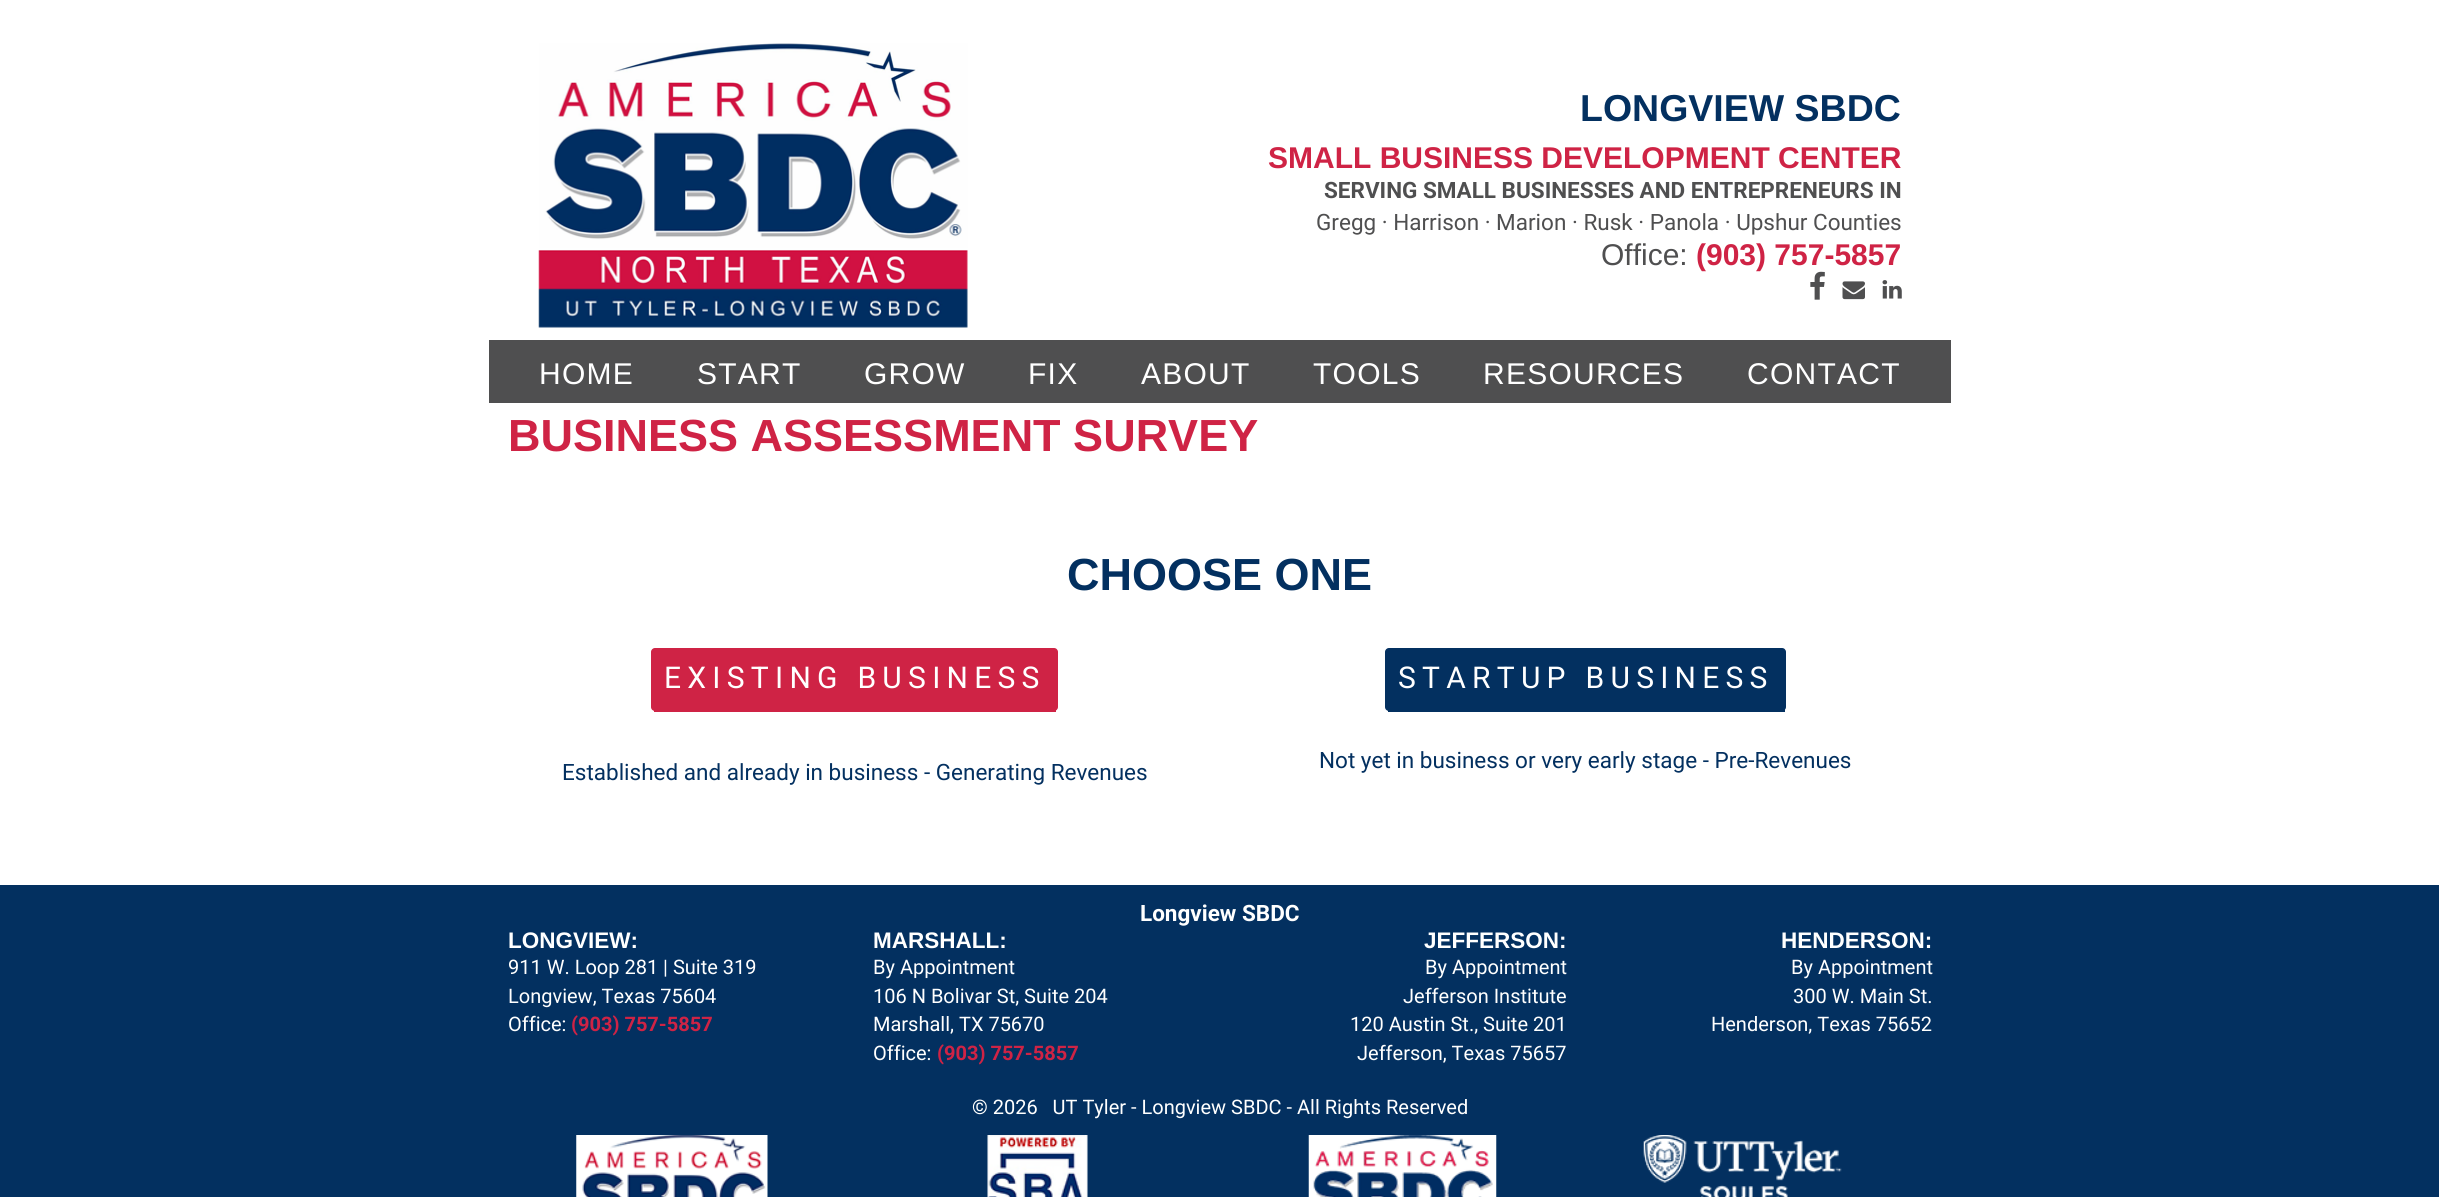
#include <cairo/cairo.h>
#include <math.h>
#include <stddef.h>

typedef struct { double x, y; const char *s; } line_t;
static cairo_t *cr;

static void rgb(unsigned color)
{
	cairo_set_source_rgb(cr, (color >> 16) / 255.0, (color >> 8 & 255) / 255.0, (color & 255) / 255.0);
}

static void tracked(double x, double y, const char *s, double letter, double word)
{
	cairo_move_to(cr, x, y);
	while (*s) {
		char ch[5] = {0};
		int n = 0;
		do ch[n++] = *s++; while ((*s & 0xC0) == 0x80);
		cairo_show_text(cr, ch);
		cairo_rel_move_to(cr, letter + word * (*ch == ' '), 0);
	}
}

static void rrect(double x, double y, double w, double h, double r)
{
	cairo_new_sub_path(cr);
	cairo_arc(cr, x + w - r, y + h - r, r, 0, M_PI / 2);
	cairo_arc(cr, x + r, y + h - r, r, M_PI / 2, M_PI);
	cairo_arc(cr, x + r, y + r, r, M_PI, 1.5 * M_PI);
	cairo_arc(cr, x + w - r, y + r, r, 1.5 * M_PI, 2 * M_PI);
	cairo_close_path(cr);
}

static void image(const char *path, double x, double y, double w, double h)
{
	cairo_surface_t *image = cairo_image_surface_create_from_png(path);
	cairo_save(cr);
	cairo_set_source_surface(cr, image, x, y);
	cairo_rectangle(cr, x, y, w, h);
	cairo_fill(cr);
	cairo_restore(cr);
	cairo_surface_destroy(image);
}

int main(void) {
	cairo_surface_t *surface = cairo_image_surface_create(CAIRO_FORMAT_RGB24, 2439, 1197);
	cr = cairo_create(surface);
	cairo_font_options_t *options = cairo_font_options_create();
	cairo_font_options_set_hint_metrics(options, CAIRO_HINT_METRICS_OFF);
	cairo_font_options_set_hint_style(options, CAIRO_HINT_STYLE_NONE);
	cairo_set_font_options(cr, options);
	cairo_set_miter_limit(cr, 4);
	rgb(0xffffff);
	cairo_paint(cr);
	image("img/1.png", 538, 43, 430, 285);
	image("img/3.png", 1842, 281, 23, 19);
	image("img/4.png", 1882, 280, 20, 19);
	rgb(0x4f4f50);
	cairo_rectangle(cr, 489, 340, 1462, 63);
	cairo_fill(cr);
	rgb(0xcf2345);
	rrect(651, 648, 407, 63, 4);
	cairo_fill(cr);
	cairo_rectangle(cr, 654, 710, 402, 2);
	cairo_fill(cr);
	rgb(0x033060);
	rrect(1385, 648, 401, 63, 4);
	cairo_fill(cr);
	cairo_rectangle(cr, 1388, 709, 397, 3);
	cairo_fill(cr);
	cairo_rectangle(cr, 0, 885, 2439, 312);
	cairo_fill(cr);
	image("img/5.png", 576, 1135, 192, 62);
	image("img/6.png", 987, 1135, 101, 62);
	image("img/7.png", 1308, 1135, 189, 62);
	image("img/8.png", 1643, 1135, 199, 62);
	cairo_select_font_face(cr, "Liberation Sans", CAIRO_FONT_SLANT_NORMAL, CAIRO_FONT_WEIGHT_BOLD);
	cairo_set_font_size(cr, 37.5);
	cairo_move_to(cr, 1580, 121);
	cairo_show_text(cr, "LONGVIEW SBDC");
	cairo_set_font_size(cr, 30);
	rgb(0xcf2345);
	cairo_move_to(cr, 1268, 168);
	cairo_show_text(cr, "SMALL BUSINESS DEVELOPMENT CENTER");
	cairo_select_font_face(cr, "Roboto", CAIRO_FONT_SLANT_NORMAL, CAIRO_FONT_WEIGHT_BOLD);
	cairo_set_font_size(cr, 22.5);
	rgb(0x4f4f50);
	cairo_move_to(cr, 1324, 198);
	cairo_show_text(cr, "SERVING SMALL BUSINESSES AND ENTREPRENEURS IN");
	cairo_select_font_face(cr, "Roboto", CAIRO_FONT_SLANT_NORMAL, CAIRO_FONT_WEIGHT_NORMAL);
	cairo_move_to(cr, 1316, 230);
	cairo_show_text(cr, "Gregg · Harrison · Marion · Rusk · Panola · Upshur Counties");
	cairo_select_font_face(cr, "Liberation Sans", CAIRO_FONT_SLANT_NORMAL, CAIRO_FONT_WEIGHT_NORMAL);
	cairo_set_font_size(cr, 30);
	cairo_move_to(cr, 1601, 265);
	cairo_show_text(cr, "Office:");
	cairo_select_font_face(cr, "Liberation Sans", CAIRO_FONT_SLANT_NORMAL, CAIRO_FONT_WEIGHT_BOLD);
	rgb(0xcf2345);
	cairo_move_to(cr, 1696, 265);
	cairo_show_text(cr, "(903) 757-5857");
	image("img/2.png", 1810, 271, 15, 29);
	cairo_select_font_face(cr, "Liberation Sans", CAIRO_FONT_SLANT_NORMAL, CAIRO_FONT_WEIGHT_NORMAL);
	rgb(0xffffff);
	{
		static const line_t items[] = {
			{539, 384, "HOME"},
			{697, 384, "START"},
			{864, 384, "GROW"},
			{1028, 384, "FIX"},
			{1141, 384, "ABOUT"},
			{1313, 384, "TOOLS"},
			{1483, 384, "RESOURCES"},
			{1747, 384, "CONTACT"},
		};
		for (size_t i = 0; i < sizeof items / sizeof *items; i++) {
			tracked(items[i].x, items[i].y, items[i].s, 1.25, 0);
		}
	}
	cairo_select_font_face(cr, "Liberation Sans", CAIRO_FONT_SLANT_NORMAL, CAIRO_FONT_WEIGHT_BOLD);
	cairo_set_font_size(cr, 45);
	rgb(0xcf2345);
	cairo_move_to(cr, 508, 451);
	cairo_show_text(cr, "BUSINESS ASSESSMENT SURVEY");
	rgb(0x033060);
	cairo_move_to(cr, 1067, 590);
	cairo_show_text(cr, "CHOOSE ONE");
	cairo_select_font_face(cr, "Roboto", CAIRO_FONT_SLANT_NORMAL, CAIRO_FONT_WEIGHT_NORMAL);
	cairo_set_font_size(cr, 30);
	rgb(0xffffff);
	tracked(664, 688, "EXISTING BUSINESS", 6.25, 0);
	cairo_set_font_size(cr, 22.5);
	rgb(0x033060);
	cairo_move_to(cr, 562, 780);
	cairo_show_text(cr, "Established and already in business - Generating Revenues");
	cairo_set_font_size(cr, 30);
	rgb(0xffffff);
	tracked(1398, 688, "STARTUP BUSINESS", 6.25, 0);
	cairo_set_font_size(cr, 22.5);
	rgb(0x033060);
	cairo_move_to(cr, 1319, 768);
	cairo_show_text(cr, "Not yet in business or very early stage - Pre-Revenues");
	cairo_select_font_face(cr, "Roboto", CAIRO_FONT_SLANT_NORMAL, CAIRO_FONT_WEIGHT_BOLD);
	rgb(0xffffff);
	cairo_move_to(cr, 1140, 921);
	cairo_show_text(cr, "Longview SBDC");
	cairo_select_font_face(cr, "Liberation Sans", CAIRO_FONT_SLANT_NORMAL, CAIRO_FONT_WEIGHT_BOLD);
	cairo_move_to(cr, 508, 948);
	cairo_show_text(cr, "LONGVIEW:");
	cairo_select_font_face(cr, "Roboto", CAIRO_FONT_SLANT_NORMAL, CAIRO_FONT_WEIGHT_NORMAL);
	cairo_set_font_size(cr, 20);
	{
		static const line_t items[] = {
			{508, 974, "911 W. Loop 281 | Suite 319"},
			{508, 1003, "Longview, Texas 75604"},
			{508, 1031, "Office:"},
		};
		for (size_t i = 0; i < sizeof items / sizeof *items; i++) {
			cairo_move_to(cr, items[i].x, items[i].y);
			cairo_show_text(cr, items[i].s);
		}
	}
	cairo_select_font_face(cr, "Roboto", CAIRO_FONT_SLANT_NORMAL, CAIRO_FONT_WEIGHT_BOLD);
	rgb(0xcf2345);
	cairo_move_to(cr, 571, 1031);
	cairo_show_text(cr, "(903) 757-5857");
	cairo_select_font_face(cr, "Liberation Sans", CAIRO_FONT_SLANT_NORMAL, CAIRO_FONT_WEIGHT_BOLD);
	cairo_set_font_size(cr, 22.5);
	rgb(0xffffff);
	cairo_move_to(cr, 873, 948);
	cairo_show_text(cr, "MARSHALL:");
	cairo_select_font_face(cr, "Roboto", CAIRO_FONT_SLANT_NORMAL, CAIRO_FONT_WEIGHT_NORMAL);
	cairo_set_font_size(cr, 20);
	{
		static const line_t items[] = {
			{873, 974, "By Appointment"},
			{873, 1003, "106 N Bolivar St, Suite 204"},
			{873, 1031, "Marshall, TX 75670"},
			{873, 1060, "Office:"},
		};
		for (size_t i = 0; i < sizeof items / sizeof *items; i++) {
			cairo_move_to(cr, items[i].x, items[i].y);
			cairo_show_text(cr, items[i].s);
		}
	}
	cairo_select_font_face(cr, "Roboto", CAIRO_FONT_SLANT_NORMAL, CAIRO_FONT_WEIGHT_BOLD);
	rgb(0xcf2345);
	cairo_move_to(cr, 937, 1060);
	cairo_show_text(cr, "(903) 757-5857");
	cairo_select_font_face(cr, "Liberation Sans", CAIRO_FONT_SLANT_NORMAL, CAIRO_FONT_WEIGHT_BOLD);
	cairo_set_font_size(cr, 22.5);
	rgb(0xffffff);
	cairo_move_to(cr, 1424, 948);
	cairo_show_text(cr, "JEFFERSON:");
	cairo_select_font_face(cr, "Roboto", CAIRO_FONT_SLANT_NORMAL, CAIRO_FONT_WEIGHT_NORMAL);
	cairo_set_font_size(cr, 20);
	{
		static const line_t items[] = {
			{1425, 974, "By Appointment"},
			{1403, 1003, "Jefferson Institute"},
			{1350, 1031, "120 Austin St., Suite 201"},
			{1357, 1060, "Jefferson, Texas 75657"},
		};
		for (size_t i = 0; i < sizeof items / sizeof *items; i++) {
			cairo_move_to(cr, items[i].x, items[i].y);
			cairo_show_text(cr, items[i].s);
		}
	}
	cairo_select_font_face(cr, "Liberation Sans", CAIRO_FONT_SLANT_NORMAL, CAIRO_FONT_WEIGHT_BOLD);
	cairo_set_font_size(cr, 22.5);
	cairo_move_to(cr, 1781, 948);
	cairo_show_text(cr, "HENDERSON:");
	cairo_select_font_face(cr, "Roboto", CAIRO_FONT_SLANT_NORMAL, CAIRO_FONT_WEIGHT_NORMAL);
	cairo_set_font_size(cr, 20);
	{
		static const line_t items[] = {
			{1791, 974, "By Appointment"},
			{1793, 1003, "300 W. Main St."},
			{1711, 1031, "Henderson, Texas 75652"},
			{972, 1114, "© 2026   UT Tyler - Longview SBDC - All Rights Reserved"},
		};
		for (size_t i = 0; i < sizeof items / sizeof *items; i++) {
			cairo_move_to(cr, items[i].x, items[i].y);
			cairo_show_text(cr, items[i].s);
		}
	}
	cairo_surface_write_to_png(surface, "page.png");
	cairo_font_options_destroy(options);
	cairo_destroy(cr);
	cairo_surface_destroy(surface);
	return 0;
}
